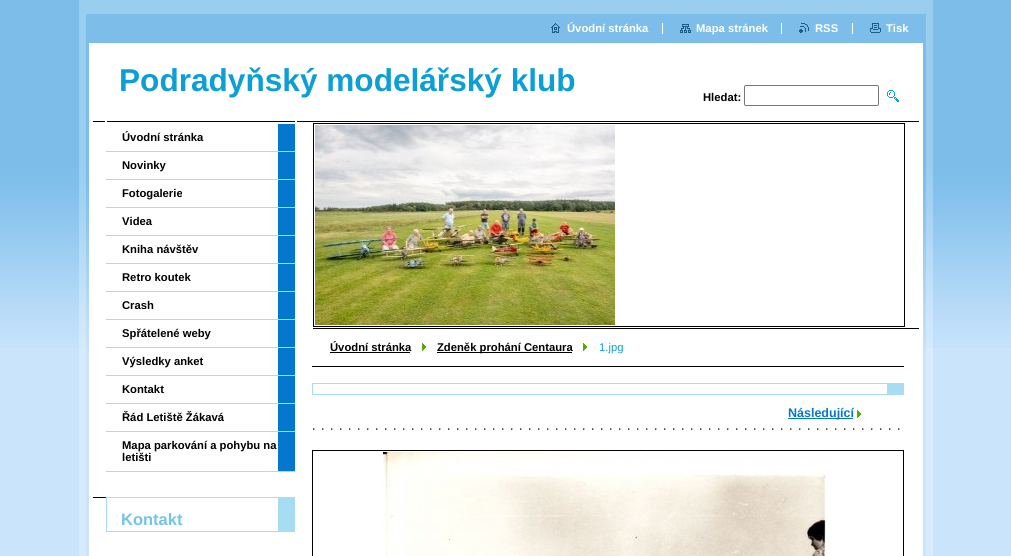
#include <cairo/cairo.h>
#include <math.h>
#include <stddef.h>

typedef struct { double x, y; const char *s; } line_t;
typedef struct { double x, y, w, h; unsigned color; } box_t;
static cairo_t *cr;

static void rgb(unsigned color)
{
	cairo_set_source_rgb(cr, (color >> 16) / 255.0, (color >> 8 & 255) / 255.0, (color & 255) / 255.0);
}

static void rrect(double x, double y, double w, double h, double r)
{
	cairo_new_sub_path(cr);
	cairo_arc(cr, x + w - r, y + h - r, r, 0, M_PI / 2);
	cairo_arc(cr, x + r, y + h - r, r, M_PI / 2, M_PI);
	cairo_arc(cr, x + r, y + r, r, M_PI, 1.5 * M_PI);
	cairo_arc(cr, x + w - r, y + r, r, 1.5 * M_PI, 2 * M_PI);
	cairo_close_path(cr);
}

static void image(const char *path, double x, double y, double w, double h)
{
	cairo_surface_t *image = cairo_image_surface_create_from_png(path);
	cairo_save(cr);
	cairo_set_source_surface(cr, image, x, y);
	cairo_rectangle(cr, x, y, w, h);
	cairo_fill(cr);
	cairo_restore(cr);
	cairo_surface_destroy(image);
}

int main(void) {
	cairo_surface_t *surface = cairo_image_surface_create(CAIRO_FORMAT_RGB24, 1011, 556);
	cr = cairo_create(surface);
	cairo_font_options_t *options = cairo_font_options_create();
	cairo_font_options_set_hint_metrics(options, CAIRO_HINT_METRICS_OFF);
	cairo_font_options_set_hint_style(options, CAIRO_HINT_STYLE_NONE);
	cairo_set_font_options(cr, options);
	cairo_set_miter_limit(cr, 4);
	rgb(0xcae4fc);
	cairo_paint(cr);
	image("img/1.png", 0, 0, 1011, 348);
	rgb(0xd8ebfd);
	cairo_rectangle(cr, 79, 348, 854, 208);
	cairo_fill(cr);
	image("img/2.png", 86, 348, 840, 208);
	image("img/3.png", 79, 0, 854, 348);
	rgb(0xffffff);
	cairo_rectangle(cr, 89, 43, 834, 305);
	cairo_fill(cr);
	image("img/4.png", 551, 23, 9, 10);
	image("img/5.png", 680, 24, 11, 9);
	cairo_rectangle(cr, 662, 23, 1, 11);
	cairo_fill(cr);
	image("img/6.png", 799, 23, 10, 10);
	cairo_rectangle(cr, 781, 23, 1, 11);
	cairo_fill(cr);
	image("img/7.png", 870, 23, 11, 10);
	cairo_rectangle(cr, 852, 23, 1, 11);
	cairo_fill(cr);
	rrect(744.5, 85.5, 134, 20, 1.5);
	rgb(0x767676);
	cairo_set_line_width(cr, 1);
	cairo_stroke(cr);
	image("img/8.png", 887, 90, 12, 12);
	image("img/9.png", 93, 121, 202, 1);
	{
		static const box_t items[] = {
			{278, 124, 17, 347, 0x0677ce},
			{106, 151, 189, 1, 0xcfcfcf},
			{106, 179, 189, 1, 0xcfcfcf},
			{106, 207, 189, 1, 0xcfcfcf},
			{106, 235, 189, 1, 0xcfcfcf},
			{106, 263, 189, 1, 0xcfcfcf},
			{106, 291, 189, 1, 0xcfcfcf},
			{106, 319, 189, 1, 0xcfcfcf},
			{106, 347, 189, 1, 0xcfcfcf},
			{106, 375, 189, 1, 0xcfcfcf},
			{106, 403, 189, 1, 0xcfcfcf},
			{106, 431, 189, 1, 0xcfcfcf},
			{106, 471, 189, 1, 0xcfcfcf},
		};
		for (size_t i = 0; i < sizeof items / sizeof *items; i++) {
			rgb(items[i].color);
			cairo_rectangle(cr, items[i].x, items[i].y, items[i].w, items[i].h);
			cairo_fill(cr);
		}
	}
	image("img/10.png", 93, 497, 13, 1);
	{
		static const box_t items[] = {
			{106, 497, 172, 1, 0xa6ddf2},
			{278, 497, 17, 34, 0xa6ddf2},
			{106, 531, 189, 1, 0xa6ddf2},
			{106, 497, 1, 35, 0xa6ddf2},
			{297, 121, 622, 1, 0x000000},
			{313, 328, 606, 1, 0x000000},
		};
		for (size_t i = 0; i < sizeof items / sizeof *items; i++) {
			rgb(items[i].color);
			cairo_rectangle(cr, items[i].x, items[i].y, items[i].w, items[i].h);
			cairo_fill(cr);
		}
	}
	cairo_rectangle(cr, 313.5, 123.5, 591, 203);
	cairo_stroke(cr);
	image("img/11.png", 315, 125, 300, 200);
	cairo_rectangle(cr, 312, 366, 592, 1);
	cairo_fill(cr);
	cairo_rectangle(cr, 330, 352, 80, 1);
	cairo_fill(cr);
	image("img/12.png", 422, 343, 4, 8);
	cairo_rectangle(cr, 437, 352, 135, 1);
	cairo_fill(cr);
	image("img/12.png", 583, 343, 4, 8);
	{
		static const box_t items[] = {
			{312, 383, 575, 1, 0xa6ddf2},
			{887, 383, 17, 11, 0xa6ddf2},
			{312, 394, 592, 1, 0xa6ddf2},
			{312, 383, 1, 12, 0xa6ddf2},
		};
		for (size_t i = 0; i < sizeof items / sizeof *items; i++) {
			rgb(items[i].color);
			cairo_rectangle(cr, items[i].x, items[i].y, items[i].w, items[i].h);
			cairo_fill(cr);
		}
	}
	image("img/13.png", 313, 428, 587, 2);
	rgb(0x0677ce);
	cairo_rectangle(cr, 788, 418, 65, 1);
	cairo_fill(cr);
	image("img/12.png", 857, 410, 4, 8);
	cairo_rectangle(cr, 312.5, 450.5, 591, 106);
	rgb(0x000000);
	cairo_stroke(cr);
	image("img/14.png", 383, 452, 448, 104);
	cairo_select_font_face(cr, "Liberation Sans", CAIRO_FONT_SLANT_NORMAL, CAIRO_FONT_WEIGHT_BOLD);
	cairo_set_font_size(cr, 11.25);
	rgb(0xffffff);
	{
		static const line_t items[] = {
			{567, 32, "Úvodní stránka"},
			{696, 32, "Mapa stránek"},
			{815, 32, "RSS"},
			{886, 32, "Tisk"},
		};
		for (size_t i = 0; i < sizeof items / sizeof *items; i++) {
			cairo_move_to(cr, items[i].x, items[i].y);
			cairo_show_text(cr, items[i].s);
		}
	}
	cairo_set_font_size(cr, 31.6);
	rgb(0x0c9fd6);
	cairo_move_to(cr, 119, 91);
	cairo_show_text(cr, "Podradyňský modelářský klub");
	cairo_set_font_size(cr, 11.25);
	rgb(0x000000);
	{
		static const line_t items[] = {
			{703, 101, "Hledat:"},
			{122, 141, "Úvodní stránka"},
			{122, 169, "Novinky"},
			{122, 197, "Fotogalerie"},
			{122, 225, "Videa"},
			{122, 253, "Kniha návštěv"},
			{122, 281, "Retro koutek"},
			{122, 309, "Crash"},
			{122, 337, "Spřátelené weby"},
			{122, 365, "Výsledky anket"},
			{122, 393, "Kontakt"},
			{122, 421, "Řád Letiště Žákavá"},
			{122, 449, "Mapa parkování a pohybu na"},
			{122, 461, "letišti"},
		};
		for (size_t i = 0; i < sizeof items / sizeof *items; i++) {
			cairo_move_to(cr, items[i].x, items[i].y);
			cairo_show_text(cr, items[i].s);
		}
	}
	cairo_set_font_size(cr, 16.5);
	rgb(0x73c5e5);
	cairo_move_to(cr, 121, 525);
	cairo_show_text(cr, "Kontakt");
	cairo_set_font_size(cr, 11.25);
	rgb(0x000000);
	cairo_move_to(cr, 330, 351);
	cairo_show_text(cr, "Úvodní stránka");
	cairo_move_to(cr, 437, 351);
	cairo_show_text(cr, "Zdeněk prohání Centaura");
	cairo_select_font_face(cr, "Liberation Sans", CAIRO_FONT_SLANT_NORMAL, CAIRO_FONT_WEIGHT_NORMAL);
	rgb(0x0c9fd6);
	cairo_move_to(cr, 599, 351);
	cairo_show_text(cr, "1.jpg");
	cairo_select_font_face(cr, "Liberation Sans", CAIRO_FONT_SLANT_NORMAL, CAIRO_FONT_WEIGHT_BOLD);
	cairo_set_font_size(cr, 12.5);
	rgb(0x0677ce);
	cairo_move_to(cr, 788, 417);
	cairo_show_text(cr, "Následující");
	cairo_surface_write_to_png(surface, "page.png");
	cairo_font_options_destroy(options);
	cairo_destroy(cr);
	cairo_surface_destroy(surface);
	return 0;
}
